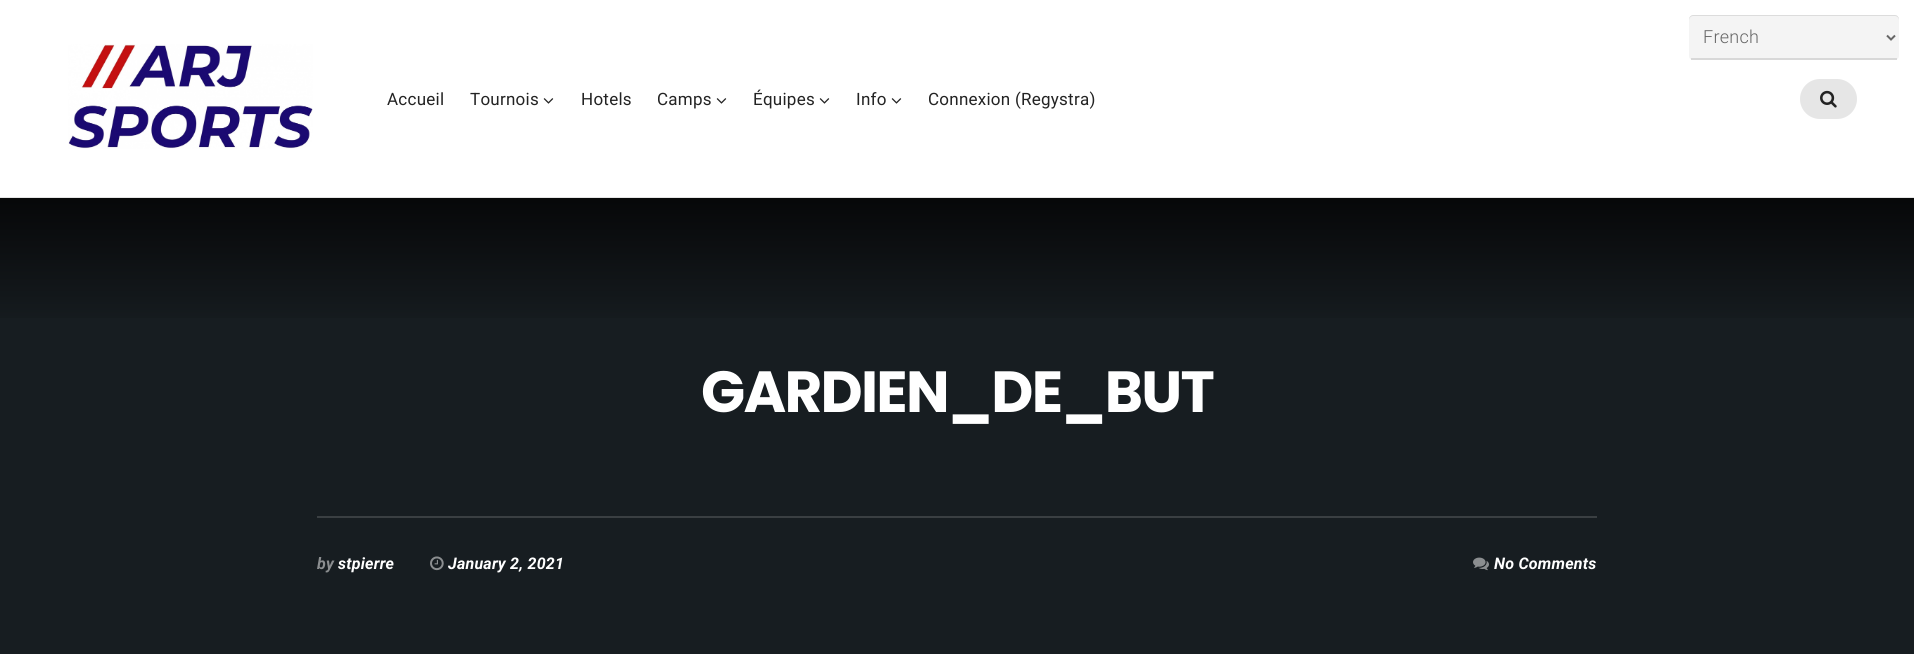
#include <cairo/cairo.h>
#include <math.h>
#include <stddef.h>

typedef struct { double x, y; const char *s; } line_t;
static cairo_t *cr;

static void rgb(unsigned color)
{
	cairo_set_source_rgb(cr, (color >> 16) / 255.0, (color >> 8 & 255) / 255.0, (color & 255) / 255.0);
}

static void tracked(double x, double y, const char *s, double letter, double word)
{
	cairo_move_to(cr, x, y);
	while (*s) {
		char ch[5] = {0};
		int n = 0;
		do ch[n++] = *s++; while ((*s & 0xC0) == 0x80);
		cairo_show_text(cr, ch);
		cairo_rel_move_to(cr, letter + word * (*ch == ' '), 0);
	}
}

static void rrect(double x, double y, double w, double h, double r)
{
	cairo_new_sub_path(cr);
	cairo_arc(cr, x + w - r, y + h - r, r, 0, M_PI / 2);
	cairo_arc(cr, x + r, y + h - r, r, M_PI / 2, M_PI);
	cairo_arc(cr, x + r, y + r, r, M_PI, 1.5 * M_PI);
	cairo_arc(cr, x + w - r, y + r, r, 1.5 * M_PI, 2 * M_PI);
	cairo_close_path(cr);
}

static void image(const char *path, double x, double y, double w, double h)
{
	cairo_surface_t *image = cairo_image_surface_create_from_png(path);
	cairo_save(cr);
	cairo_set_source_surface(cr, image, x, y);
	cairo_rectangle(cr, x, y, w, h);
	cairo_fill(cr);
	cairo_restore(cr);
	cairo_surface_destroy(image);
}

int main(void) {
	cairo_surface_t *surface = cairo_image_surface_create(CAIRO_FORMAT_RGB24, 1914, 654);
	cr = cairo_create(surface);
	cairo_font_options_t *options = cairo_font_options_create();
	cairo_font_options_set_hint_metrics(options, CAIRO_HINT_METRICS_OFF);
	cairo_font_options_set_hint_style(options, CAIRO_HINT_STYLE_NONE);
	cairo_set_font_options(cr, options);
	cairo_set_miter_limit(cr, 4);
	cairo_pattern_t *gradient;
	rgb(0x171d21);
	cairo_paint(cr);
	rgb(0xffffff);
	cairo_rectangle(cr, 0, 0, 1914, 197);
	cairo_fill(cr);
	rgb(0xf4f4f4);
	rrect(1689, 15, 210, 45, 4);
	cairo_fill(cr);
	cairo_set_source_rgba(cr, 0, 0, 0, 0.1);
	cairo_new_path(cr);
	cairo_move_to(cr, 1693, 16);
	cairo_line_to(cr, 1895, 16);
	cairo_curve_to(cr, 1897, 16, 1899, 18, 1899, 20);
	cairo_line_to(cr, 1899, 19);
	cairo_curve_to(cr, 1899, 17, 1897, 15, 1895, 15);
	cairo_line_to(cr, 1693, 15);
	cairo_curve_to(cr, 1691, 15, 1689, 17, 1689, 19);
	cairo_line_to(cr, 1689, 20);
	cairo_curve_to(cr, 1689, 18, 1691, 16, 1693, 16);
	cairo_close_path(cr);
	cairo_fill(cr);
	rgb(0xd8d8d8);
	cairo_rectangle(cr, 1691, 58, 206, 2);
	cairo_fill(cr);
	cairo_new_path(cr);
	cairo_move_to(cr, 1887, 35.5);
	cairo_line_to(cr, 1891, 39.5);
	cairo_line_to(cr, 1895, 35.5);
	rgb(0x666666);
	cairo_stroke(cr);
	rgb(0xe5e5e5);
	cairo_rectangle(cr, 0, 197, 1914, 1);
	cairo_fill(cr);
	image("img/1.png", 68, 44, 245, 105);
	image("img/2.png", 543, 98, 11, 6);
	image("img/2.png", 716, 98, 11, 6);
	image("img/2.png", 819, 98, 11, 6);
	image("img/2.png", 891, 98, 11, 6);
	rgb(0xe6e6e6);
	rrect(1800, 79, 57, 40, 20);
	cairo_fill(cr);
	image("img/3.png", 1820, 90, 17, 18);
	gradient = cairo_pattern_create_linear(957, 194, 957, 332);
	cairo_pattern_add_color_stop_rgba(gradient, 0, 0.024, 0.027, 0.031, 1);
	cairo_pattern_add_color_stop_rgba(gradient, 1, 0.09, 0.114, 0.129, 1);
	cairo_set_source(cr, gradient);
	cairo_pattern_destroy(gradient);
	cairo_rectangle(cr, 0, 198, 1914, 120);
	cairo_fill(cr);
	rgb(0x3a3f42);
	cairo_rectangle(cr, 317, 516, 1280, 2);
	cairo_fill(cr);
	image("img/4.png", 430, 556, 14, 15);
	image("img/5.png", 1473, 557, 16, 14);
	cairo_select_font_face(cr, "Roboto Light", CAIRO_FONT_SLANT_NORMAL, CAIRO_FONT_WEIGHT_NORMAL);
	cairo_set_font_size(cr, 18);
	rgb(0x666666);
	tracked(1703, 43, "French", 0.25, 0);
	cairo_select_font_face(cr, "Roboto", CAIRO_FONT_SLANT_NORMAL, CAIRO_FONT_WEIGHT_NORMAL);
	cairo_set_font_size(cr, 17);
	rgb(0x232323);
	{
		static const line_t items[] = {
			{387, 105, "Accueil"},
			{470, 105, "Tournois"},
			{581, 105, "Hotels"},
			{657, 105, "Camps"},
			{753, 105, "Équipes"},
			{856, 105, "Info"},
			{928, 105, "Connexion (Regystra)"},
		};
		for (size_t i = 0; i < sizeof items / sizeof *items; i++) {
			tracked(items[i].x, items[i].y, items[i].s, 0.25, 0);
		}
	}
	cairo_select_font_face(cr, "Poppins", CAIRO_FONT_SLANT_NORMAL, CAIRO_FONT_WEIGHT_BOLD);
	cairo_set_font_size(cr, 58);
	rgb(0xffffff);
	tracked(701, 412, "GARDIEN_DE_BUT", -1.75, 0);
	cairo_select_font_face(cr, "Roboto", CAIRO_FONT_SLANT_ITALIC, CAIRO_FONT_WEIGHT_BOLD);
	cairo_set_font_size(cr, 16);
	rgb(0x8b8e90);
	tracked(317, 569, "by", 0.25, 0);
	rgb(0xffffff);
	{
		static const line_t items[] = {
			{338, 569, "stpierre"},
			{448, 569, "January 2, 2021"},
			{1494, 569, "No Comments"},
		};
		for (size_t i = 0; i < sizeof items / sizeof *items; i++) {
			tracked(items[i].x, items[i].y, items[i].s, 0.25, 0);
		}
	}
	cairo_surface_write_to_png(surface, "page.png");
	cairo_font_options_destroy(options);
	cairo_destroy(cr);
	cairo_surface_destroy(surface);
	return 0;
}
